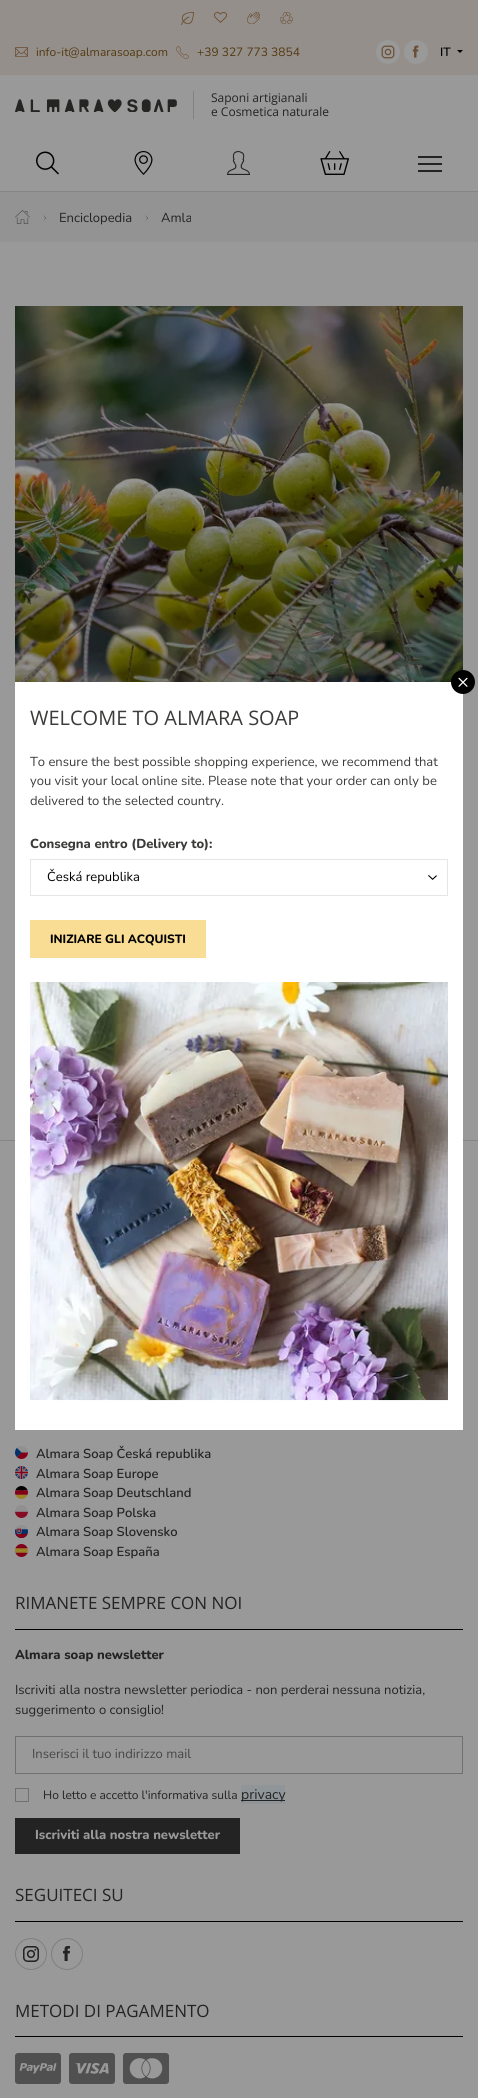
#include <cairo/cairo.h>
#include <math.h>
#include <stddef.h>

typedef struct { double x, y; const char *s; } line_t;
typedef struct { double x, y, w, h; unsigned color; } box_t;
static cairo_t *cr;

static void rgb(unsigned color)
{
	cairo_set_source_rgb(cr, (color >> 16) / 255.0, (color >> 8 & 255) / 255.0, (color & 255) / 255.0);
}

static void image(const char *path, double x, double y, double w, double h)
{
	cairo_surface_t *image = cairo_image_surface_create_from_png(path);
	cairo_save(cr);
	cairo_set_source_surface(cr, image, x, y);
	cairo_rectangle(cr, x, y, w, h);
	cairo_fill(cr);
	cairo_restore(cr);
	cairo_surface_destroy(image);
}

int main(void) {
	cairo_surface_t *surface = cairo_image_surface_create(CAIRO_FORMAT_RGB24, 478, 2098);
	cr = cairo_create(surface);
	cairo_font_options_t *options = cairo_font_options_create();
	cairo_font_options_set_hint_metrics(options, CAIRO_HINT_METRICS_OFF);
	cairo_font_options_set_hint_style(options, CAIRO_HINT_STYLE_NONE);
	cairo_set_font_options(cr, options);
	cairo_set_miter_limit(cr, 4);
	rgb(0x999999);
	cairo_paint(cr);
	rgb(0x948f8a);
	cairo_rectangle(cr, 0, 0, 478, 75);
	cairo_fill(cr);
	image("img/1.png", 181, 12, 13, 13);
	image("img/2.png", 214, 12, 13, 11);
	image("img/3.png", 247, 12, 13, 12);
	image("img/4.png", 280, 12, 13, 12);
	image("img/5.png", 15, 47, 13, 10);
	image("img/6.png", 176, 46, 13, 13);
	image("img/7.png", 376, 40, 24, 24);
	image("img/8.png", 404, 40, 24, 24);
	rgb(0x000000);
	cairo_new_path(cr);
	cairo_move_to(cr, 457, 50);
	cairo_line_to(cr, 463, 50);
	cairo_line_to(cr, 460, 53);
	cairo_close_path(cr);
	cairo_fill(cr);
	rgb(0x858585);
	cairo_rectangle(cr, 0, 191, 478, 1);
	cairo_fill(cr);
	image("img/9.png", 15, 99, 162, 13);
	rgb(0x828282);
	cairo_rectangle(cr, 193, 91, 1, 28);
	cairo_fill(cr);
	image("img/10.png", 36, 151, 23, 24);
	image("img/11.png", 134, 151, 19, 24);
	image("img/12.png", 227, 151, 23, 24);
	image("img/13.png", 320, 151, 29, 24);
	{
		static const box_t items[] = {
			{418, 163, 24, 2, 0x232323},
			{418, 156, 24, 2, 0x232323},
			{418, 170, 24, 2, 0x232323},
			{0, 192, 478, 50, 0x939393},
		};
		for (size_t i = 0; i < sizeof items / sizeof *items; i++) {
			rgb(items[i].color);
			cairo_rectangle(cr, items[i].x, items[i].y, items[i].w, items[i].h);
			cairo_fill(cr);
		}
	}
	image("img/14.png", 15, 210, 15, 14);
	rgb(0x242423);
	cairo_new_path(cr);
	cairo_move_to(cr, 46, 218);
	cairo_line_to(cr, 43, 221);
	cairo_line_to(cr, 45.5, 218);
	cairo_line_to(cr, 43, 215);
	cairo_close_path(cr);
	cairo_fill(cr);
	cairo_new_path(cr);
	cairo_move_to(cr, 148, 218);
	cairo_line_to(cr, 145, 221);
	cairo_line_to(cr, 147.5, 218);
	cairo_line_to(cr, 145, 215);
	cairo_close_path(cr);
	cairo_fill(cr);
	rgb(0x858585);
	cairo_rectangle(cr, 0, 1140, 478, 1);
	cairo_fill(cr);
	image("img/15.png", 15, 306, 448, 376);
	rgb(0xffffff);
	cairo_rectangle(cr, 15, 682, 448, 748);
	cairo_fill(cr);
	rgb(0x000000);
	cairo_arc(cr, 463, 682, 12, 0, 2 * M_PI);
	cairo_fill(cr);
	image("img/16.png", 428, 875, 9, 5);
	cairo_rectangle(cr, 30.5, 859.5, 417, 36);
	rgb(0xe6e6e6);
	cairo_set_line_width(cr, 1);
	cairo_stroke(cr);
	rgb(0xf9dd95);
	cairo_rectangle(cr, 30, 920, 176, 38);
	cairo_fill(cr);
	image("img/17.png", 30, 982, 418, 419);
	image("img/18.png", 15, 1446, 13, 13);
	image("img/19.png", 15, 1466, 13, 13);
	image("img/20.png", 15, 1486, 13, 13);
	image("img/21.png", 15, 1505, 13, 13);
	image("img/22.png", 15, 1525, 13, 13);
	image("img/23.png", 15, 1544, 13, 13);
	rgb(0x000000);
	cairo_rectangle(cr, 15, 1629, 448, 1);
	cairo_fill(cr);
	cairo_rectangle(cr, 15.5, 1736.5, 447, 37);
	rgb(0x707070);
	cairo_stroke(cr);
	cairo_rectangle(cr, 15.5, 1788.5, 13, 13);
	cairo_stroke(cr);
	{
		static const box_t items[] = {
			{241, 1785, 44, 19, 0x8f9598},
			{241, 1800, 44, 1, 0x232323},
			{15, 1818, 225, 36, 0x232323},
			{15, 1921, 448, 1, 0x000000},
		};
		for (size_t i = 0; i < sizeof items / sizeof *items; i++) {
			rgb(items[i].color);
			cairo_rectangle(cr, items[i].x, items[i].y, items[i].w, items[i].h);
			cairo_fill(cr);
		}
	}
	image("img/24.png", 15, 1938, 32, 32);
	image("img/25.png", 51, 1938, 32, 32);
	cairo_rectangle(cr, 15, 2036, 448, 1);
	cairo_fill(cr);
	image("img/26.png", 15, 2053, 46, 31);
	image("img/27.png", 69, 2053, 46, 31);
	image("img/28.png", 123, 2053, 46, 31);
	cairo_select_font_face(cr, "Nunito", CAIRO_FONT_SLANT_NORMAL, CAIRO_FONT_WEIGHT_NORMAL);
	cairo_set_font_size(cr, 12);
	rgb(0x533a11);
	cairo_move_to(cr, 36, 56);
	cairo_show_text(cr, "info-it@almarasoap.com");
	cairo_move_to(cr, 197, 56);
	cairo_show_text(cr, "+39 327 773 3854");
	cairo_select_font_face(cr, "Nunito SemiBold", CAIRO_FONT_SLANT_NORMAL, CAIRO_FONT_WEIGHT_NORMAL);
	rgb(0x000000);
	cairo_move_to(cr, 440, 56);
	cairo_show_text(cr, "IT");
	cairo_select_font_face(cr, "Open Sans", CAIRO_FONT_SLANT_NORMAL, CAIRO_FONT_WEIGHT_NORMAL);
	rgb(0x232323);
	cairo_move_to(cr, 211, 102);
	cairo_show_text(cr, "Saponi artigianali");
	cairo_move_to(cr, 211, 116);
	cairo_show_text(cr, "e Cosmetica naturale");
	cairo_select_font_face(cr, "Nunito", CAIRO_FONT_SLANT_NORMAL, CAIRO_FONT_WEIGHT_NORMAL);
	cairo_set_font_size(cr, 13);
	cairo_move_to(cr, 59, 222);
	cairo_show_text(cr, "Enciclopedia");
	cairo_move_to(cr, 161, 222);
	cairo_show_text(cr, "Amla");
	cairo_set_font_size(cr, 20);
	rgb(0xffffff);
	cairo_move_to(cr, 457, 688);
	cairo_show_text(cr, "×");
	cairo_select_font_face(cr, "Open Sans", CAIRO_FONT_SLANT_NORMAL, CAIRO_FONT_WEIGHT_NORMAL);
	rgb(0x3b3b3a);
	cairo_move_to(cr, 30, 725);
	cairo_show_text(cr, "WELCOME TO ALMARA SOAP");
	cairo_select_font_face(cr, "Nunito", CAIRO_FONT_SLANT_NORMAL, CAIRO_FONT_WEIGHT_NORMAL);
	cairo_set_font_size(cr, 13);
	{
		static const line_t items[] = {
			{30, 766, "To ensure the best possible shopping experience, we recommend that"},
			{30, 785, "you visit your local online site. Please note that your order can only be"},
			{30, 805, "delivered to the selected country."},
		};
		for (size_t i = 0; i < sizeof items / sizeof *items; i++) {
			cairo_move_to(cr, items[i].x, items[i].y);
			cairo_show_text(cr, items[i].s);
		}
	}
	cairo_select_font_face(cr, "Nunito ExtraBold", CAIRO_FONT_SLANT_NORMAL, CAIRO_FONT_WEIGHT_NORMAL);
	cairo_move_to(cr, 30, 848);
	cairo_show_text(cr, "Consegna entro (Delivery to):");
	cairo_select_font_face(cr, "Nunito", CAIRO_FONT_SLANT_NORMAL, CAIRO_FONT_WEIGHT_NORMAL);
	rgb(0x000000);
	cairo_move_to(cr, 47, 881);
	cairo_show_text(cr, "Česká republika");
	cairo_select_font_face(cr, "Nunito ExtraBold", CAIRO_FONT_SLANT_NORMAL, CAIRO_FONT_WEIGHT_NORMAL);
	cairo_set_font_size(cr, 12);
	cairo_move_to(cr, 50, 943);
	cairo_show_text(cr, "INIZIARE GLI ACQUISTI");
	cairo_select_font_face(cr, "Nunito SemiBold", CAIRO_FONT_SLANT_NORMAL, CAIRO_FONT_WEIGHT_NORMAL);
	cairo_set_font_size(cr, 13);
	rgb(0x232323);
	{
		static const line_t items[] = {
			{36, 1458, "Almara Soap Česká republika"},
			{36, 1478, "Almara Soap Europe"},
			{36, 1497, "Almara Soap Deutschland"},
			{36, 1517, "Almara Soap Polska"},
			{36, 1536, "Almara Soap Slovensko"},
			{36, 1556, "Almara Soap España"},
		};
		for (size_t i = 0; i < sizeof items / sizeof *items; i++) {
			cairo_move_to(cr, items[i].x, items[i].y);
			cairo_show_text(cr, items[i].s);
		}
	}
	cairo_select_font_face(cr, "Open Sans", CAIRO_FONT_SLANT_NORMAL, CAIRO_FONT_WEIGHT_NORMAL);
	cairo_set_font_size(cr, 17);
	cairo_move_to(cr, 15, 1609);
	cairo_show_text(cr, "RIMANETE SEMPRE CON NOI");
	cairo_select_font_face(cr, "Nunito ExtraBold", CAIRO_FONT_SLANT_NORMAL, CAIRO_FONT_WEIGHT_NORMAL);
	cairo_set_font_size(cr, 13);
	cairo_move_to(cr, 15, 1659);
	cairo_show_text(cr, "Almara soap newsletter");
	cairo_select_font_face(cr, "Nunito", CAIRO_FONT_SLANT_NORMAL, CAIRO_FONT_WEIGHT_NORMAL);
	cairo_move_to(cr, 15, 1694);
	cairo_show_text(cr, "Iscriviti alla nostra newsletter periodica - non perderai nessuna notizia,");
	cairo_move_to(cr, 15, 1714);
	cairo_show_text(cr, "suggerimento o consiglio!");
	rgb(0x464646);
	cairo_move_to(cr, 32, 1758);
	cairo_show_text(cr, "Inserisci il tuo indirizzo mail");
	cairo_set_font_size(cr, 12);
	rgb(0x232323);
	cairo_move_to(cr, 43, 1799);
	cairo_show_text(cr, "Ho letto e accetto l'informativa sulla");
	cairo_set_font_size(cr, 14);
	cairo_move_to(cr, 241, 1799);
	cairo_show_text(cr, "privacy");
	cairo_select_font_face(cr, "Nunito ExtraBold", CAIRO_FONT_SLANT_NORMAL, CAIRO_FONT_WEIGHT_NORMAL);
	cairo_set_font_size(cr, 13);
	rgb(0x999999);
	cairo_move_to(cr, 35, 1839);
	cairo_show_text(cr, "Iscriviti alla nostra newsletter");
	cairo_select_font_face(cr, "Open Sans", CAIRO_FONT_SLANT_NORMAL, CAIRO_FONT_WEIGHT_NORMAL);
	cairo_set_font_size(cr, 17);
	rgb(0x232323);
	cairo_move_to(cr, 15, 1901);
	cairo_show_text(cr, "SEGUITECI SU");
	cairo_move_to(cr, 15, 2017);
	cairo_show_text(cr, "METODI DI PAGAMENTO");
	cairo_surface_write_to_png(surface, "page.png");
	cairo_font_options_destroy(options);
	cairo_destroy(cr);
	cairo_surface_destroy(surface);
	return 0;
}
